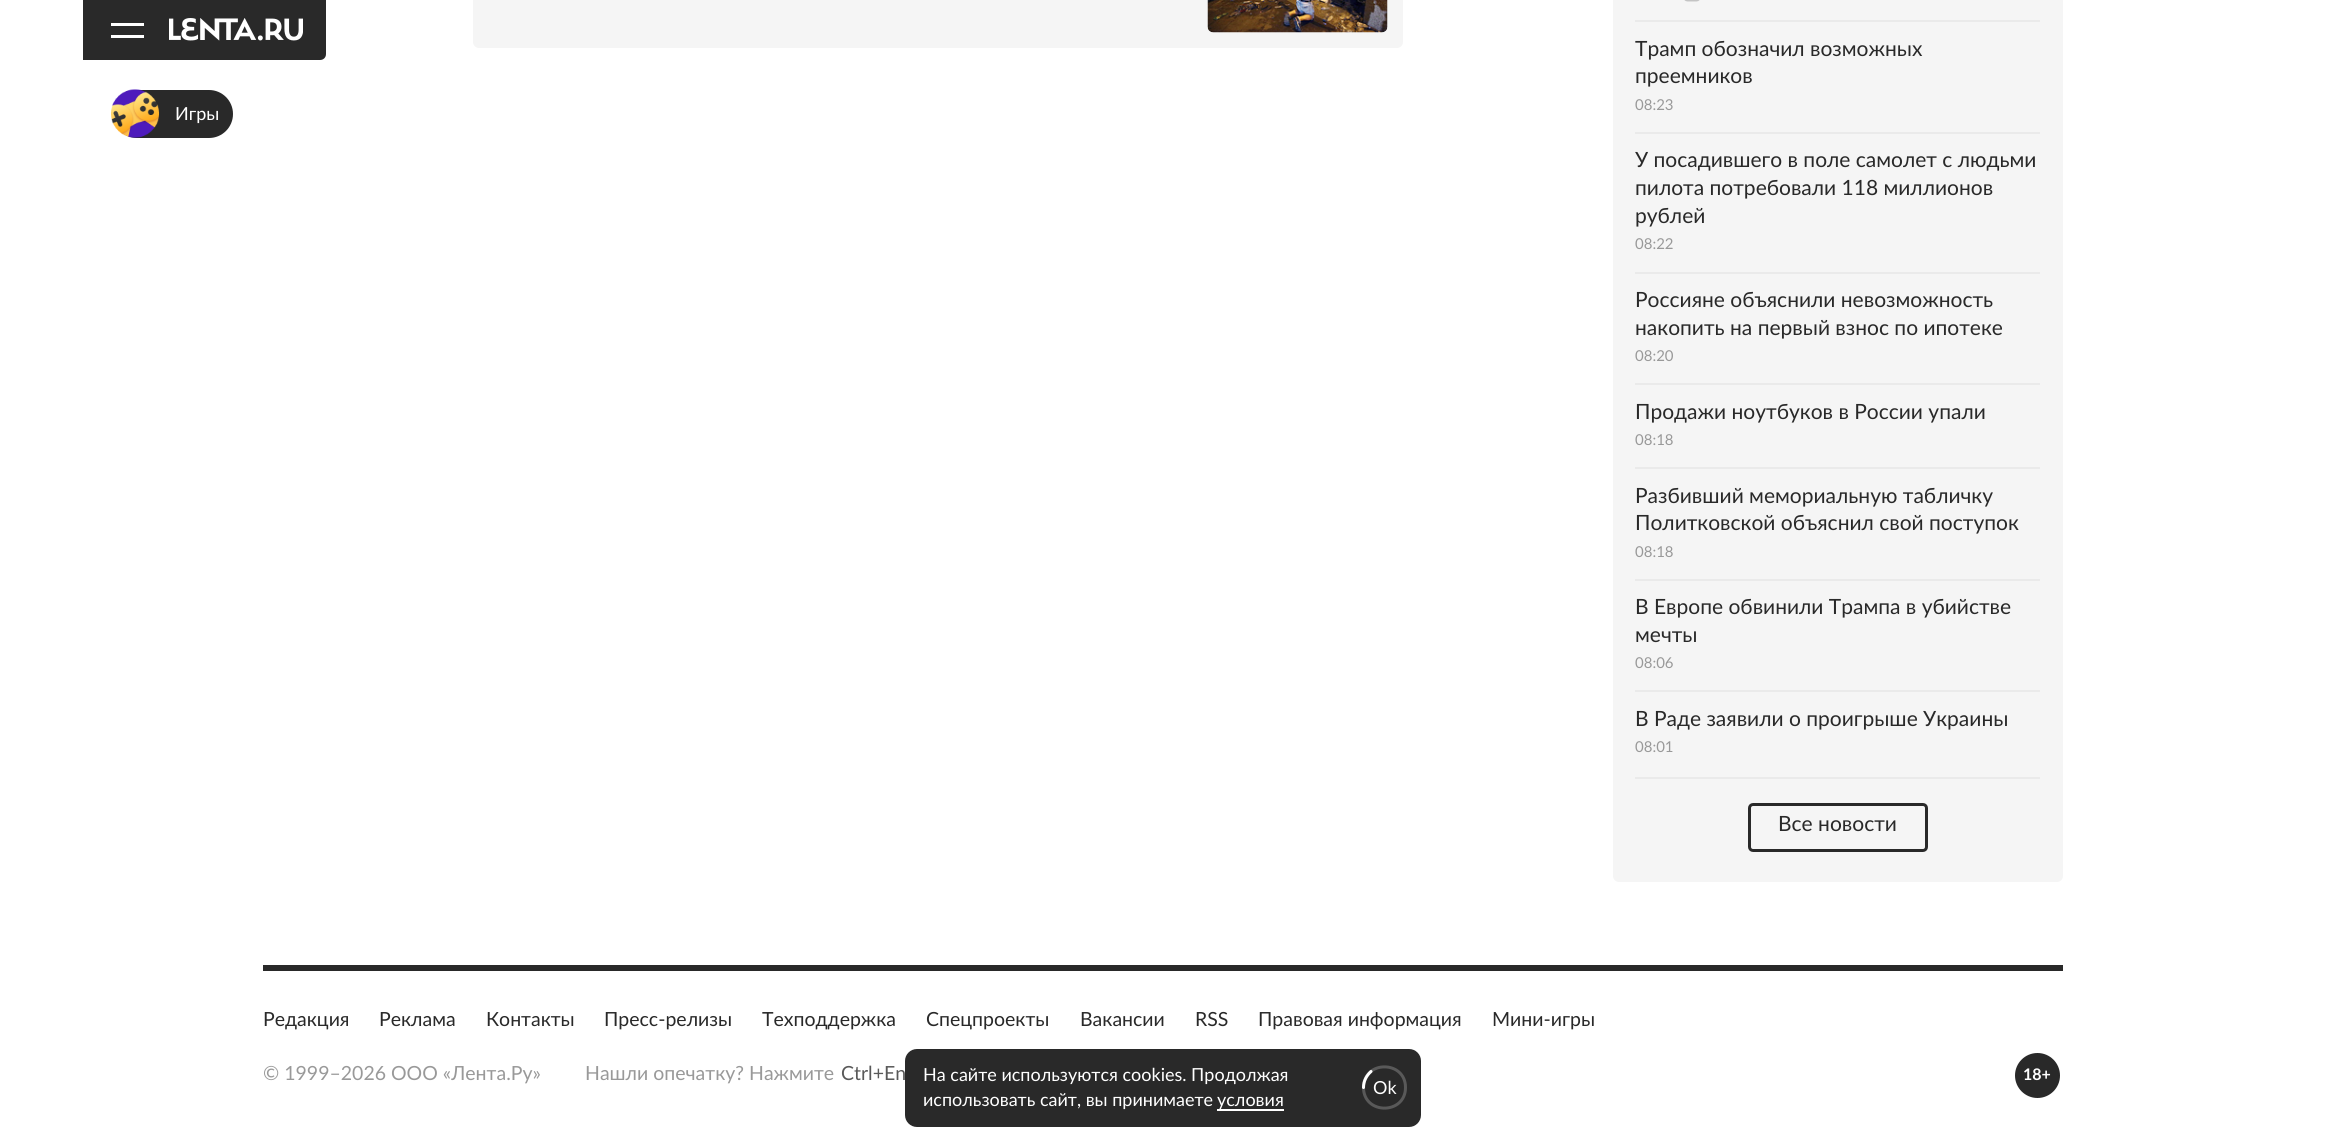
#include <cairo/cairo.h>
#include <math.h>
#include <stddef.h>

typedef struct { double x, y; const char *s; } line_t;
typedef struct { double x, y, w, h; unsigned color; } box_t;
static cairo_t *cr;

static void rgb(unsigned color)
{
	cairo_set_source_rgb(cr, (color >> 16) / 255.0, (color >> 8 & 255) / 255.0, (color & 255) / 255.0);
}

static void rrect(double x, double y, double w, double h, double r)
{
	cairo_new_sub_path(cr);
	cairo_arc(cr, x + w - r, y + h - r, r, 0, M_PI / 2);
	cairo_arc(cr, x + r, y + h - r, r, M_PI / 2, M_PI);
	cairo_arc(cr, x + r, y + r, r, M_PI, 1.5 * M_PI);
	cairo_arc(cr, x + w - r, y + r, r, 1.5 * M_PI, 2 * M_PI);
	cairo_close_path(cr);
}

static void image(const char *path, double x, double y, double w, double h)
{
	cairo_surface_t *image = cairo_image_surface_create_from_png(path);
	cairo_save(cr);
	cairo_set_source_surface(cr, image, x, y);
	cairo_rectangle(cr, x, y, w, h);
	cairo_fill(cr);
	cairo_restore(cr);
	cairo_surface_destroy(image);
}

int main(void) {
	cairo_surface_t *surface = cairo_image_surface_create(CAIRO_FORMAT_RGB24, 2325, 1141);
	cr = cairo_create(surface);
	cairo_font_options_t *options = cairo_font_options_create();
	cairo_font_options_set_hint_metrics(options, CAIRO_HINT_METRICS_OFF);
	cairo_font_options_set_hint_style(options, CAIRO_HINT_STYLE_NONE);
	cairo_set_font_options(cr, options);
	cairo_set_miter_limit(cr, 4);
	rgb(0xffffff);
	cairo_paint(cr);
	rgb(0x292929);
	cairo_new_path(cr);
	cairo_move_to(cr, 83, 0);
	cairo_line_to(cr, 326, 0);
	cairo_line_to(cr, 326, 54);
	cairo_curve_to(cr, 326, 57.5, 323.5, 60, 320, 60);
	cairo_line_to(cr, 83, 60);
	cairo_close_path(cr);
	cairo_fill(cr);
	rgb(0xffffff);
	cairo_rectangle(cr, 111, 23, 33, 3);
	cairo_fill(cr);
	cairo_rectangle(cr, 111, 35, 33, 3);
	cairo_fill(cr);
	image("img/1.png", 169, 18, 134, 23);
	rgb(0x292929);
	rrect(113, 90, 120, 48, 24);
	cairo_fill(cr);
	image("img/2.png", 111, 89, 48, 49);
	rgb(0xf5f5f5);
	rrect(473, -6, 930, 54, 6);
	cairo_fill(cr);
	image("img/3.png", 1207, 0, 181, 33);
	rrect(1613, -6, 450, 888, 6);
	cairo_fill(cr);
	rgb(0xeaeaea);
	cairo_rectangle(cr, 1635, 777, 405, 2);
	cairo_fill(cr);
	cairo_rectangle(cr, 1635, 20, 405, 2);
	cairo_fill(cr);
	image("img/4.png", 1684, 0, 16, 2);
	{
		static const box_t items[] = {
			{1635, 132, 405, 2, 0xeaeaea},
			{1635, 272, 405, 2, 0xeaeaea},
			{1635, 383, 405, 2, 0xeaeaea},
			{1635, 467, 405, 2, 0xeaeaea},
			{1635, 579, 405, 2, 0xeaeaea},
			{1635, 690, 405, 2, 0xeaeaea},
		};
		for (size_t i = 0; i < sizeof items / sizeof *items; i++) {
			rgb(items[i].color);
			cairo_rectangle(cr, items[i].x, items[i].y, items[i].w, items[i].h);
			cairo_fill(cr);
		}
	}
	rrect(1749.5, 804.5, 177, 46, 3.5);
	rgb(0x292929);
	cairo_set_line_width(cr, 3);
	cairo_stroke(cr);
	cairo_rectangle(cr, 263, 965, 1800, 6);
	cairo_fill(cr);
	cairo_arc(cr, 2037.5, 1075.5, 22.5, 0, 2 * M_PI);
	cairo_fill(cr);
	rrect(905, 1049, 516, 78, 12);
	cairo_fill(cr);
	rgb(0xffffff);
	cairo_rectangle(cr, 1217, 1109, 67, 2);
	cairo_fill(cr);
	cairo_select_font_face(cr, "Lato", CAIRO_FONT_SLANT_NORMAL, CAIRO_FONT_WEIGHT_NORMAL);
	cairo_set_font_size(cr, 18);
	cairo_move_to(cr, 175, 120);
	cairo_show_text(cr, "Игры");
	cairo_set_font_size(cr, 21);
	rgb(0x292929);
	cairo_move_to(cr, 1635, 56);
	cairo_show_text(cr, "Трамп обозначил возможных");
	cairo_move_to(cr, 1635, 83);
	cairo_show_text(cr, "преемников");
	cairo_set_font_size(cr, 15);
	rgb(0x999999);
	cairo_move_to(cr, 1635, 110);
	cairo_show_text(cr, "08:23");
	cairo_set_font_size(cr, 21);
	rgb(0x292929);
	{
		static const line_t items[] = {
			{1635, 167, "У посадившего в поле самолет с людьми"},
			{1635, 195, "пилота потребовали 118 миллионов"},
			{1635, 223, "рублей"},
		};
		for (size_t i = 0; i < sizeof items / sizeof *items; i++) {
			cairo_move_to(cr, items[i].x, items[i].y);
			cairo_show_text(cr, items[i].s);
		}
	}
	cairo_set_font_size(cr, 15);
	rgb(0x999999);
	cairo_move_to(cr, 1635, 249);
	cairo_show_text(cr, "08:22");
	cairo_set_font_size(cr, 21);
	rgb(0x292929);
	cairo_move_to(cr, 1635, 307);
	cairo_show_text(cr, "Россияне объяснили невозможность");
	cairo_move_to(cr, 1635, 335);
	cairo_show_text(cr, "накопить на первый взнос по ипотеке");
	cairo_set_font_size(cr, 15);
	rgb(0x999999);
	cairo_move_to(cr, 1635, 361);
	cairo_show_text(cr, "08:20");
	cairo_set_font_size(cr, 21);
	rgb(0x292929);
	cairo_move_to(cr, 1635, 419);
	cairo_show_text(cr, "Продажи ноутбуков в России упали");
	cairo_set_font_size(cr, 15);
	rgb(0x999999);
	cairo_move_to(cr, 1635, 445);
	cairo_show_text(cr, "08:18");
	cairo_set_font_size(cr, 21);
	rgb(0x292929);
	cairo_move_to(cr, 1635, 503);
	cairo_show_text(cr, "Разбивший мемориальную табличку");
	cairo_move_to(cr, 1635, 530);
	cairo_show_text(cr, "Политковской объяснил свой поступок");
	cairo_set_font_size(cr, 15);
	rgb(0x999999);
	cairo_move_to(cr, 1635, 557);
	cairo_show_text(cr, "08:18");
	cairo_set_font_size(cr, 21);
	rgb(0x292929);
	cairo_move_to(cr, 1635, 614);
	cairo_show_text(cr, "В Европе обвинили Трампа в убийстве");
	cairo_move_to(cr, 1635, 642);
	cairo_show_text(cr, "мечты");
	cairo_set_font_size(cr, 15);
	rgb(0x999999);
	cairo_move_to(cr, 1635, 668);
	cairo_show_text(cr, "08:06");
	cairo_set_font_size(cr, 21);
	rgb(0x292929);
	cairo_move_to(cr, 1635, 726);
	cairo_show_text(cr, "В Раде заявили о проигрыше Украины");
	cairo_set_font_size(cr, 15);
	rgb(0x999999);
	cairo_move_to(cr, 1635, 752);
	cairo_show_text(cr, "08:01");
	cairo_set_font_size(cr, 21);
	rgb(0x292929);
	cairo_move_to(cr, 1778, 831);
	cairo_show_text(cr, "Все новости");
	cairo_set_font_size(cr, 19.5);
	{
		static const line_t items[] = {
			{263, 1026, "Редакция"},
			{379, 1026, "Реклама"},
			{486, 1026, "Контакты"},
			{604, 1026, "Пресс-релизы"},
			{762, 1026, "Техподдержка"},
			{926, 1026, "Спецпроекты"},
			{1080, 1026, "Вакансии"},
			{1195, 1026, "RSS"},
			{1258, 1026, "Правовая информация"},
			{1492, 1026, "Мини-игры"},
		};
		for (size_t i = 0; i < sizeof items / sizeof *items; i++) {
			cairo_move_to(cr, items[i].x, items[i].y);
			cairo_show_text(cr, items[i].s);
		}
	}
	rgb(0x999999);
	cairo_move_to(cr, 263, 1080);
	cairo_show_text(cr, "© 1999–2026 ООО «Лента.Ру»");
	cairo_move_to(cr, 585, 1080);
	cairo_show_text(cr, "Нашли опечатку? Нажмите");
	rgb(0x595959);
	cairo_move_to(cr, 841, 1080);
	cairo_show_text(cr, "Ctrl+En");
	cairo_select_font_face(cr, "Lato", CAIRO_FONT_SLANT_NORMAL, CAIRO_FONT_WEIGHT_BOLD);
	cairo_set_font_size(cr, 16);
	rgb(0xffffff);
	cairo_move_to(cr, 2023, 1080);
	cairo_show_text(cr, "18+");
	cairo_select_font_face(cr, "Lato", CAIRO_FONT_SLANT_NORMAL, CAIRO_FONT_WEIGHT_NORMAL);
	cairo_set_font_size(cr, 18);
	{
		static const line_t items[] = {
			{923, 1081, "На сайте используются cookies. Продолжая"},
			{923, 1106, "использовать сайт, вы принимаете"},
			{1217, 1106, "условия"},
			{1373, 1094, "Ok"},
		};
		for (size_t i = 0; i < sizeof items / sizeof *items; i++) {
			cairo_move_to(cr, items[i].x, items[i].y);
			cairo_show_text(cr, items[i].s);
		}
	}
	cairo_new_path(cr);
	cairo_move_to(cr, 1363.5, 1087.5);
	cairo_curve_to(cr, 1363.5, 1060, 1405.5, 1060, 1405.5, 1087.5);
	cairo_curve_to(cr, 1405.5, 1115, 1363.5, 1115, 1363.5, 1087.5);
	cairo_close_path(cr);
	rgb(0x595959);
	cairo_set_line_cap(cr, CAIRO_LINE_CAP_ROUND);
	cairo_stroke(cr);
	cairo_new_path(cr);
	cairo_move_to(cr, 1363.5, 1087.5);
	cairo_curve_to(cr, 1363.5, 1081, 1366.5, 1075.5, 1371, 1071.5);
	rgb(0xffffff);
	cairo_stroke(cr);
	cairo_surface_write_to_png(surface, "page.png");
	cairo_font_options_destroy(options);
	cairo_destroy(cr);
	cairo_surface_destroy(surface);
	return 0;
}
